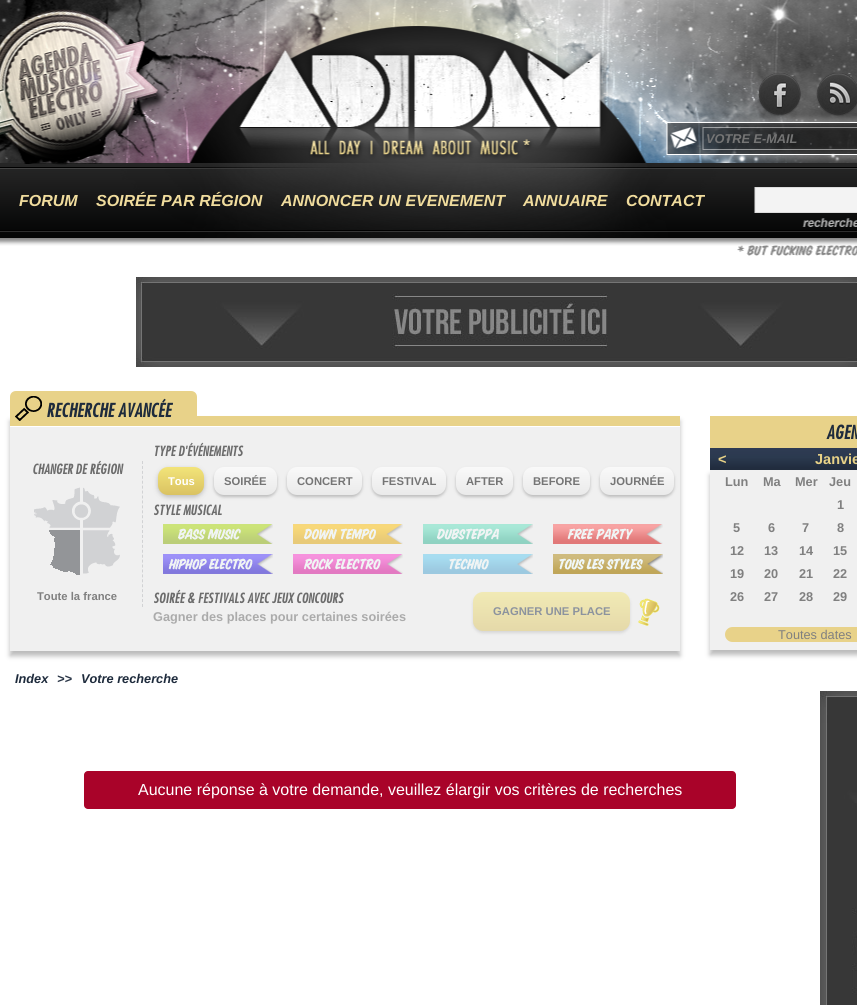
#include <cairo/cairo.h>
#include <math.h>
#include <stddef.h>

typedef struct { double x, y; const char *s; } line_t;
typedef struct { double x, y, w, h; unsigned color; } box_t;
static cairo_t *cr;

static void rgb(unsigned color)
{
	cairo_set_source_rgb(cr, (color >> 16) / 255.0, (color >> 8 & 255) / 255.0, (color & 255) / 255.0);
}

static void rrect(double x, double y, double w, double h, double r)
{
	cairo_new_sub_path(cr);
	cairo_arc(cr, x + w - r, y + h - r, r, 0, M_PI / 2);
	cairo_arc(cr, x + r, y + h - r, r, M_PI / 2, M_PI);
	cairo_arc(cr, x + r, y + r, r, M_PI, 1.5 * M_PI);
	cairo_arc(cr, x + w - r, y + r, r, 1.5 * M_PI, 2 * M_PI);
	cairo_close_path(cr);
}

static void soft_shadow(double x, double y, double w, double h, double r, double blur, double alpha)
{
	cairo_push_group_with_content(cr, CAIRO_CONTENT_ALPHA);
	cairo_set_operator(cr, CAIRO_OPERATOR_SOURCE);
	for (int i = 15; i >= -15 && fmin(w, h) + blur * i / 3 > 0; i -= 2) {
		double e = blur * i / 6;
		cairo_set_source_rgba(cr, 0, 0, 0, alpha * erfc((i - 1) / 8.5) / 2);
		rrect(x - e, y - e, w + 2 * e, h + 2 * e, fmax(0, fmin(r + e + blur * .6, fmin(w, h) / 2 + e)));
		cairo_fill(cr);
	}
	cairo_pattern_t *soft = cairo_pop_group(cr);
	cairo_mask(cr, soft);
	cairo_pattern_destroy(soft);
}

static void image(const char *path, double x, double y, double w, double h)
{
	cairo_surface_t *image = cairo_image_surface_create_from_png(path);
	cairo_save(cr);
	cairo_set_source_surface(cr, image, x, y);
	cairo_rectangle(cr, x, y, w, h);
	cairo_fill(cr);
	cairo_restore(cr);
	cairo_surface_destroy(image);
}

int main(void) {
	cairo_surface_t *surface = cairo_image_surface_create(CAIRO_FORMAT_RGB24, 857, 1005);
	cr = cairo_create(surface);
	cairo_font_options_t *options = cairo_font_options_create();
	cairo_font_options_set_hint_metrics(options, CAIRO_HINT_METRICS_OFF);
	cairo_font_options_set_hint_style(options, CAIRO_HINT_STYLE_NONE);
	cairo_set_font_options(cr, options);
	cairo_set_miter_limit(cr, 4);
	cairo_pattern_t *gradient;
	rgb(0xffffff);
	cairo_paint(cr);
	image("img/1.png", 0, 0, 857, 259);
	image("img/2.png", 758, 73, 43, 43);
	image("img/3.png", 816, 73, 41, 43);
	image("img/4.png", 136, 277, 721, 90);
	rgb(0xbbbbbb);
	soft_shadow(10, 421, 670, 235, 0, 2.5, 1);
	{
		static const box_t items[] = {
			{10, 427, 670, 224, 0xf0f0f0},
			{197, 416, 483, 10, 0xe8d289},
			{10, 426, 670, 1, 0xffffff},
		};
		for (size_t i = 0; i < sizeof items / sizeof *items; i++) {
			rgb(items[i].color);
			cairo_rectangle(cr, items[i].x, items[i].y, items[i].w, items[i].h);
			cairo_fill(cr);
		}
	}
	rgb(0xe8d289);
	cairo_new_path(cr);
	cairo_move_to(cr, 16, 391);
	cairo_line_to(cr, 191, 391);
	cairo_curve_to(cr, 194.5, 391, 197, 393.5, 197, 397);
	cairo_line_to(cr, 197, 426);
	cairo_line_to(cr, 10, 426);
	cairo_line_to(cr, 10, 397);
	cairo_curve_to(cr, 10, 393.5, 12.5, 391, 16, 391);
	cairo_close_path(cr);
	cairo_fill(cr);
	image("img/5.png", 15, 396, 27, 25);
	cairo_new_path(cr);
	cairo_move_to(cr, 142.5, 461);
	cairo_line_to(cr, 142.5, 607);
	rgb(0xd1d2d4);
	cairo_set_line_width(cr, 1);
	cairo_set_dash(cr, (double[]){3, 1.93}, 2, 0);
	cairo_stroke(cr);
	image("img/6.png", 34, 487, 86, 88);
	rgb(0xbbbbbb);
	soft_shadow(158, 469, 46, 28, 10, 2.5, 1);
	gradient = cairo_pattern_create_linear(181, 467, 181, 495);
	cairo_pattern_add_color_stop_rgba(gradient, 0, 0.949, 0.894, 0.475, 1);
	cairo_pattern_add_color_stop_rgba(gradient, 1, 0.855, 0.761, 0.384, 1);
	cairo_set_source(cr, gradient);
	cairo_pattern_destroy(gradient);
	rrect(158, 467, 46, 28, 10);
	cairo_fill(cr);
	rgb(0xbbbbbb);
	soft_shadow(214, 469, 63, 28, 10, 1.5, 1);
	gradient = cairo_pattern_create_linear(246, 467, 246, 495);
	cairo_pattern_add_color_stop_rgba(gradient, 0, 0.976, 0.976, 0.976, 1);
	cairo_pattern_add_color_stop_rgba(gradient, 1, 0.918, 0.918, 0.918, 1);
	cairo_set_source(cr, gradient);
	cairo_pattern_destroy(gradient);
	rrect(214, 467, 63, 28, 10);
	cairo_fill(cr);
	rgb(0xbbbbbb);
	soft_shadow(287, 469, 75, 28, 10, 1.5, 1);
	gradient = cairo_pattern_create_linear(325, 467, 325, 495);
	cairo_pattern_add_color_stop_rgba(gradient, 0, 0.976, 0.976, 0.976, 1);
	cairo_pattern_add_color_stop_rgba(gradient, 1, 0.918, 0.918, 0.918, 1);
	cairo_set_source(cr, gradient);
	cairo_pattern_destroy(gradient);
	rrect(287, 467, 75, 28, 10);
	cairo_fill(cr);
	rgb(0xbbbbbb);
	soft_shadow(372, 469, 74, 28, 10, 1.5, 1);
	gradient = cairo_pattern_create_linear(409, 467, 409, 495);
	cairo_pattern_add_color_stop_rgba(gradient, 0, 0.976, 0.976, 0.976, 1);
	cairo_pattern_add_color_stop_rgba(gradient, 1, 0.918, 0.918, 0.918, 1);
	cairo_set_source(cr, gradient);
	cairo_pattern_destroy(gradient);
	rrect(372, 467, 74, 28, 10);
	cairo_fill(cr);
	rgb(0xbbbbbb);
	soft_shadow(456, 469, 57, 28, 10, 1.5, 1);
	gradient = cairo_pattern_create_linear(485, 467, 485, 495);
	cairo_pattern_add_color_stop_rgba(gradient, 0, 0.976, 0.976, 0.976, 1);
	cairo_pattern_add_color_stop_rgba(gradient, 1, 0.918, 0.918, 0.918, 1);
	cairo_set_source(cr, gradient);
	cairo_pattern_destroy(gradient);
	rrect(456, 467, 57, 28, 10);
	cairo_fill(cr);
	rgb(0xbbbbbb);
	soft_shadow(523, 469, 67, 28, 10, 1.5, 1);
	gradient = cairo_pattern_create_linear(557, 467, 557, 495);
	cairo_pattern_add_color_stop_rgba(gradient, 0, 0.976, 0.976, 0.976, 1);
	cairo_pattern_add_color_stop_rgba(gradient, 1, 0.918, 0.918, 0.918, 1);
	cairo_set_source(cr, gradient);
	cairo_pattern_destroy(gradient);
	rrect(523, 467, 67, 28, 10);
	cairo_fill(cr);
	rgb(0xbbbbbb);
	soft_shadow(600, 469, 74, 28, 10, 1.5, 1);
	gradient = cairo_pattern_create_linear(637, 467, 637, 495);
	cairo_pattern_add_color_stop_rgba(gradient, 0, 0.976, 0.976, 0.976, 1);
	cairo_pattern_add_color_stop_rgba(gradient, 1, 0.918, 0.918, 0.918, 1);
	cairo_set_source(cr, gradient);
	cairo_pattern_destroy(gradient);
	rrect(600, 467, 74, 28, 10);
	cairo_fill(cr);
	image("img/7.png", 163, 524, 110, 20);
	image("img/8.png", 293, 524, 110, 20);
	image("img/9.png", 423, 524, 110, 20);
	image("img/10.png", 553, 524, 110, 20);
	image("img/11.png", 163, 554, 110, 20);
	image("img/12.png", 293, 554, 110, 20);
	image("img/13.png", 423, 554, 110, 20);
	image("img/14.png", 553, 554, 110, 20);
	rgb(0xd6d6d6);
	soft_shadow(473, 594, 157, 39, 10, 1.5, 1);
	gradient = cairo_pattern_create_linear(552, 592, 552, 631);
	cairo_pattern_add_color_stop_rgba(gradient, 0, 0.945, 0.918, 0.71, 1);
	cairo_pattern_add_color_stop_rgba(gradient, 1, 0.898, 0.851, 0.663, 1);
	cairo_set_source(cr, gradient);
	cairo_pattern_destroy(gradient);
	rrect(473, 592, 157, 39, 10);
	cairo_fill(cr);
	image("img/15.png", 638, 598, 22, 28);
	rgb(0xe8d289);
	cairo_rectangle(cr, 710, 416, 147, 32);
	cairo_fill(cr);
	gradient = cairo_pattern_create_linear(850, 448, 850, 470);
	cairo_pattern_add_color_stop_rgba(gradient, 0, 0.184, 0.231, 0.325, 1);
	cairo_pattern_add_color_stop_rgba(gradient, 0.42, 0.169, 0.227, 0.31, 1);
	cairo_pattern_add_color_stop_rgba(gradient, 1, 0.118, 0.161, 0.231, 1);
	cairo_set_source(cr, gradient);
	cairo_pattern_destroy(gradient);
	cairo_rectangle(cr, 710, 448, 147, 22);
	cairo_fill(cr);
	rgb(0xbbbbbb);
	soft_shadow(710, 475, 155, 180, 0, 2.5, 1);
	rgb(0xf0f0f0);
	cairo_rectangle(cr, 710, 470, 147, 180);
	cairo_fill(cr);
	rgb(0xe8d289);
	rrect(725, 627, 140, 15, 7.5);
	cairo_fill(cr);
	rgb(0xa90329);
	rrect(84, 771, 652, 38, 4);
	cairo_fill(cr);
	image("img/16.png", 820, 691, 37, 314);
	cairo_select_font_face(cr, "Liberation Sans", CAIRO_FONT_SLANT_ITALIC, CAIRO_FONT_WEIGHT_BOLD);
	cairo_set_font_size(cr, 12.75);
	rgb(0x757575);
	cairo_move_to(cr, 706, 143);
	cairo_show_text(cr, "VOTRE E-MAIL");
	cairo_set_font_size(cr, 16);
	rgb(0xf0dc9d);
	{
		static const line_t items[] = {
			{19, 206, "FORUM"},
			{96, 206, "SOIRÉE PAR RÉGION"},
			{281, 206, "ANNONCER UN EVENEMENT"},
			{523, 206, "ANNUAIRE"},
			{626, 206, "CONTACT"},
		};
		for (size_t i = 0; i < sizeof items / sizeof *items; i++) {
			cairo_move_to(cr, items[i].x, items[i].y);
			cairo_show_text(cr, items[i].s);
		}
	}
	cairo_select_font_face(cr, "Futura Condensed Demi", CAIRO_FONT_SLANT_ITALIC, CAIRO_FONT_WEIGHT_BOLD);
	cairo_set_font_size(cr, 17.5);
	rgb(0x1e2b3c);
	cairo_move_to(cr, 46, 417);
	cairo_show_text(cr, "RECHERCHE AVANCÉE");
	cairo_set_font_size(cr, 12.75);
	rgb(0x6c6c6c);
	cairo_move_to(cr, 32, 474);
	cairo_show_text(cr, "CHANGER DE RÉGION");
	cairo_select_font_face(cr, "Liberation Sans", CAIRO_FONT_SLANT_NORMAL, CAIRO_FONT_WEIGHT_BOLD);
	cairo_set_font_size(cr, 11.25);
	rgb(0x808080);
	cairo_move_to(cr, 37, 600);
	cairo_show_text(cr, "Toute la france");
	cairo_select_font_face(cr, "Futura Condensed Demi", CAIRO_FONT_SLANT_ITALIC, CAIRO_FONT_WEIGHT_BOLD);
	cairo_set_font_size(cr, 12.75);
	rgb(0x6c6c6c);
	cairo_move_to(cr, 153, 456);
	cairo_show_text(cr, "TYPE D'ÉVÉNEMENTS");
	cairo_select_font_face(cr, "Liberation Sans", CAIRO_FONT_SLANT_NORMAL, CAIRO_FONT_WEIGHT_BOLD);
	cairo_set_font_size(cr, 11.25);
	rgb(0xffffff);
	cairo_move_to(cr, 168, 485);
	cairo_show_text(cr, "Tous");
	rgb(0x757575);
	{
		static const line_t items[] = {
			{224, 485, "SOIRÉE"},
			{297, 485, "CONCERT"},
			{382, 485, "FESTIVAL"},
			{466, 485, "AFTER"},
			{533, 485, "BEFORE"},
			{610, 485, "JOURNÉE"},
		};
		for (size_t i = 0; i < sizeof items / sizeof *items; i++) {
			cairo_move_to(cr, items[i].x, items[i].y);
			cairo_show_text(cr, items[i].s);
		}
	}
	cairo_select_font_face(cr, "Futura Condensed Demi", CAIRO_FONT_SLANT_ITALIC, CAIRO_FONT_WEIGHT_BOLD);
	cairo_set_font_size(cr, 12.75);
	rgb(0x6c6c6c);
	cairo_move_to(cr, 153, 515);
	cairo_show_text(cr, "STYLE MUSICAL");
	cairo_move_to(cr, 153, 603);
	cairo_show_text(cr, "SOIRÉE & FESTIVALS AVEC JEUX CONCOURS");
	cairo_select_font_face(cr, "Liberation Sans", CAIRO_FONT_SLANT_NORMAL, CAIRO_FONT_WEIGHT_BOLD);
	cairo_set_font_size(cr, 11.25);
	rgb(0x8c939e);
	cairo_move_to(cr, 493, 615);
	cairo_show_text(cr, "GAGNER UNE PLACE");
	cairo_set_font_size(cr, 12.75);
	rgb(0xababab);
	cairo_move_to(cr, 153, 621);
	cairo_show_text(cr, "Gagner des places pour certaines soirées");
	cairo_select_font_face(cr, "Futura Condensed Demi", CAIRO_FONT_SLANT_ITALIC, CAIRO_FONT_WEIGHT_BOLD);
	cairo_set_font_size(cr, 17.5);
	rgb(0x1e2b3c);
	cairo_move_to(cr, 826, 439);
	cairo_show_text(cr, "AGEN");
	cairo_select_font_face(cr, "Liberation Sans", CAIRO_FONT_SLANT_NORMAL, CAIRO_FONT_WEIGHT_BOLD);
	cairo_set_font_size(cr, 14.5);
	rgb(0xe8d287);
	cairo_move_to(cr, 718, 464);
	cairo_show_text(cr, "<");
	cairo_move_to(cr, 815, 464);
	cairo_show_text(cr, "Janvie");
	cairo_set_font_size(cr, 12.75);
	rgb(0x808080);
	{
		static const line_t items[] = {
			{725, 486, "Lun"},
			{763, 486, "Ma"},
			{795, 486, "Mer"},
			{829, 486, "Jeu"},
			{837, 509, "1"},
			{733, 532, "5"},
			{768, 532, "6"},
			{802, 532, "7"},
			{837, 532, "8"},
			{730, 555, "12"},
			{764, 555, "13"},
			{799, 555, "14"},
			{833, 555, "15"},
			{730, 578, "19"},
			{764, 578, "20"},
			{799, 578, "21"},
			{833, 578, "22"},
			{730, 601, "26"},
			{764, 601, "27"},
			{799, 601, "28"},
			{833, 601, "29"},
		};
		for (size_t i = 0; i < sizeof items / sizeof *items; i++) {
			cairo_move_to(cr, items[i].x, items[i].y);
			cairo_show_text(cr, items[i].s);
		}
	}
	cairo_select_font_face(cr, "Liberation Sans", CAIRO_FONT_SLANT_NORMAL, CAIRO_FONT_WEIGHT_NORMAL);
	cairo_move_to(cr, 778, 639);
	cairo_show_text(cr, "Toutes dates");
	cairo_select_font_face(cr, "Liberation Sans", CAIRO_FONT_SLANT_ITALIC, CAIRO_FONT_WEIGHT_BOLD);
	rgb(0x1e2b3c);
	cairo_move_to(cr, 15, 683);
	cairo_show_text(cr, "Index");
	rgb(0x283445);
	cairo_move_to(cr, 57, 683);
	cairo_show_text(cr, ">>");
	rgb(0x1e2b3c);
	cairo_move_to(cr, 81, 683);
	cairo_show_text(cr, "Votre recherche");
	cairo_select_font_face(cr, "Liberation Sans", CAIRO_FONT_SLANT_NORMAL, CAIRO_FONT_WEIGHT_NORMAL);
	cairo_set_font_size(cr, 16);
	rgb(0xffffff);
	cairo_move_to(cr, 138, 795);
	cairo_show_text(cr, "Aucune réponse à votre demande, veuillez élargir vos critères de recherches");
	cairo_surface_write_to_png(surface, "page.png");
	cairo_font_options_destroy(options);
	cairo_destroy(cr);
	cairo_surface_destroy(surface);
	return 0;
}
